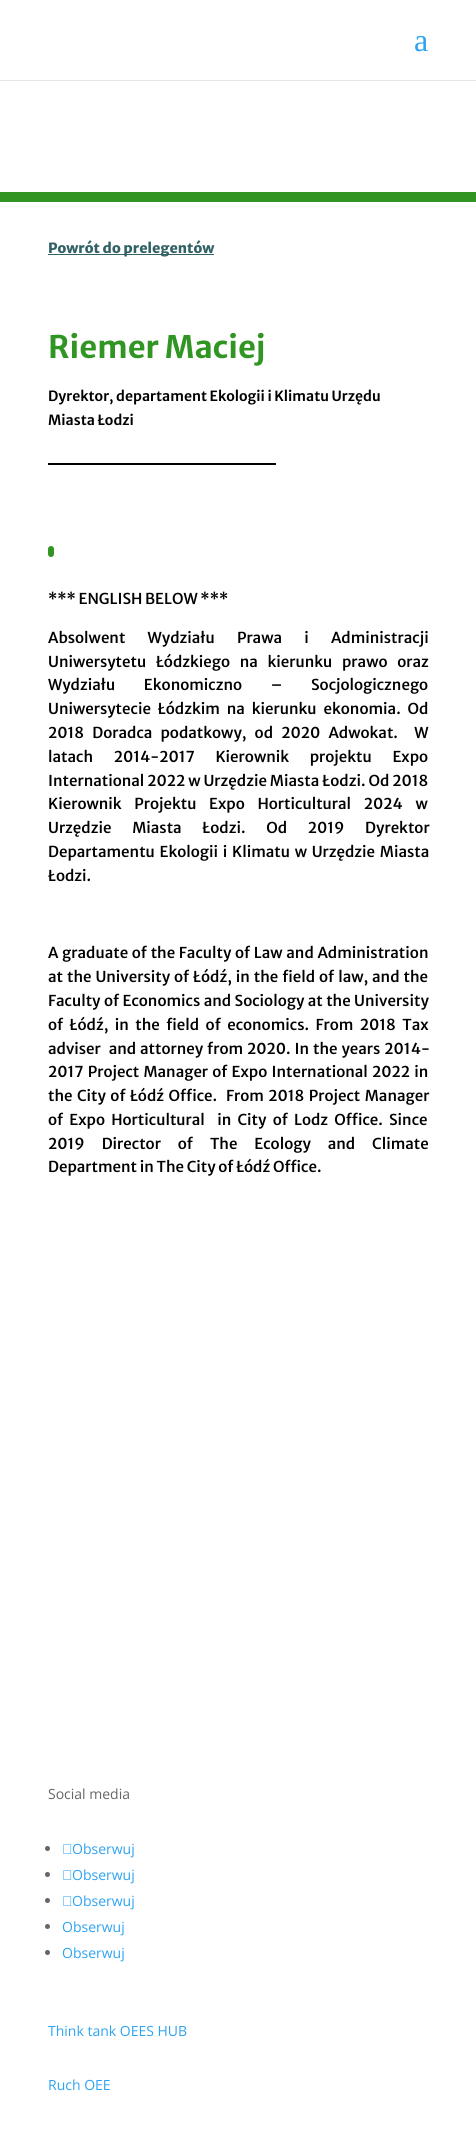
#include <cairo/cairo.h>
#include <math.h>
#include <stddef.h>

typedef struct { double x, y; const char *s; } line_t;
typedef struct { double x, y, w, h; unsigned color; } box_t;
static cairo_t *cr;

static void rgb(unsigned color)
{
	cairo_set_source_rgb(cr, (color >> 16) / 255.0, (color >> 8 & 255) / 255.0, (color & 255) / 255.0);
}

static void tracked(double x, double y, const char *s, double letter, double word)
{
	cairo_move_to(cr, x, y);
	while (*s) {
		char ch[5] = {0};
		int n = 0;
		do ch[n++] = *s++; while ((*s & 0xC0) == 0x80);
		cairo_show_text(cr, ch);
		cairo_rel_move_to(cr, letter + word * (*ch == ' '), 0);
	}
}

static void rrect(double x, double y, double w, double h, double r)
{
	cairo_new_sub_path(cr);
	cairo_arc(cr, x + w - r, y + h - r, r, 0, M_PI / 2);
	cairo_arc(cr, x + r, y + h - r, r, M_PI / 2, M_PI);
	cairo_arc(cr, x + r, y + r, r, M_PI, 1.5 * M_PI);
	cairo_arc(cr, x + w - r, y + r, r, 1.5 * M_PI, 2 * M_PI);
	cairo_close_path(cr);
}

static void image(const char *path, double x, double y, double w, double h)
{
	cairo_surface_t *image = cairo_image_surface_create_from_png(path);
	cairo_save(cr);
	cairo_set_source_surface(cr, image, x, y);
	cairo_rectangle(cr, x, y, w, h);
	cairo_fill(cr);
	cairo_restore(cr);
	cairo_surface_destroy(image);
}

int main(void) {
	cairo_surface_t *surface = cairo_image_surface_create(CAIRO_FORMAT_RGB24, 476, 2135);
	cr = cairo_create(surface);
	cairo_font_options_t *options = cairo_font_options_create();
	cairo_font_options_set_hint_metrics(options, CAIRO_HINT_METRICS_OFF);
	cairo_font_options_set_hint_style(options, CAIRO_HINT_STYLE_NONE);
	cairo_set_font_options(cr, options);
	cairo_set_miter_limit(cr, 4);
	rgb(0xffffff);
	cairo_paint(cr);
	{
		static const box_t items[] = {
			{0, 80, 476, 1, 0xe6e6e6},
			{0, 192, 476, 10, 0x309522},
			{48, 254, 166, 1, 0x326166},
			{48, 463, 228, 2, 0x000000},
		};
		for (size_t i = 0; i < sizeof items / sizeof *items; i++) {
			rgb(items[i].color);
			cairo_rectangle(cr, items[i].x, items[i].y, items[i].w, items[i].h);
			cairo_fill(cr);
		}
	}
	rgb(0x309522);
	rrect(48, 546, 6, 11, 3);
	cairo_fill(cr);
	rgb(0x666666);
	cairo_arc(cr, 47.5, 1848.5, 2.5, 0, 2 * M_PI);
	cairo_fill(cr);
	image("img/1.png", 63, 1844, 9, 10);
	cairo_arc(cr, 47.5, 1874.5, 2.5, 0, 2 * M_PI);
	cairo_fill(cr);
	image("img/1.png", 63, 1870, 9, 10);
	cairo_arc(cr, 47.5, 1900.5, 2.5, 0, 2 * M_PI);
	cairo_fill(cr);
	image("img/1.png", 63, 1896, 9, 10);
	cairo_arc(cr, 47.5, 1926.5, 2.5, 0, 2 * M_PI);
	cairo_fill(cr);
	cairo_arc(cr, 47.5, 1952.5, 2.5, 0, 2 * M_PI);
	cairo_fill(cr);
	cairo_select_font_face(cr, "Liberation Serif", CAIRO_FONT_SLANT_NORMAL, CAIRO_FONT_WEIGHT_NORMAL);
	cairo_set_font_size(cr, 32);
	rgb(0x2ea3f2);
	cairo_move_to(cr, 414, 51);
	cairo_show_text(cr, "a");
	cairo_select_font_face(cr, "Merriweather Sans ExtraBold", CAIRO_FONT_SLANT_NORMAL, CAIRO_FONT_WEIGHT_NORMAL);
	cairo_set_font_size(cr, 14);
	rgb(0x326166);
	cairo_move_to(cr, 48, 253);
	cairo_show_text(cr, "Powrót do prelegentów");
	cairo_select_font_face(cr, "Merriweather Sans", CAIRO_FONT_SLANT_NORMAL, CAIRO_FONT_WEIGHT_BOLD);
	cairo_set_font_size(cr, 31);
	rgb(0x309522);
	cairo_move_to(cr, 48, 358);
	cairo_show_text(cr, "Riemer Maciej");
	cairo_select_font_face(cr, "Merriweather Sans SemiBold", CAIRO_FONT_SLANT_NORMAL, CAIRO_FONT_WEIGHT_NORMAL);
	cairo_set_font_size(cr, 14);
	rgb(0x000000);
	cairo_move_to(cr, 48, 401);
	cairo_show_text(cr, "Dyrektor, departament Ekologii i Klimatu Urzędu");
	cairo_move_to(cr, 48, 425);
	cairo_show_text(cr, "Miasta Łodzi");
	cairo_select_font_face(cr, "Merriweather Sans Medium", CAIRO_FONT_SLANT_NORMAL, CAIRO_FONT_WEIGHT_NORMAL);
	cairo_set_font_size(cr, 15);
	cairo_move_to(cr, 48, 604);
	cairo_show_text(cr, "*** ENGLISH BELOW ***");
	tracked(48, 643, "Absolwent Wydziału Prawa i Administracji", 0, 19.5);
	tracked(48, 667, "Uniwersytetu Łódzkiego na kierunku prawo oraz", 0, 7);
	tracked(48, 690, "Wydziału Ekonomiczno – Socjologicznego", 0, 26);
	tracked(48, 714, "Uniwersytecie Łódzkim na kierunku ekonomia. Od", 0, 4.25);
	tracked(48, 738, "2018 Doradca podatkowy, od 2020 Adwokat.  W", 0, 5.5);
	tracked(48, 762, "latach 2014-2017 Kierownik projektu Expo", 0, 18);
	tracked(48, 786, "International 2022 w Urzędzie Miasta Łodzi. Od 2018", 0, 0.25);
	tracked(48, 809, "Kierownik Projektu Expo Horticultural 2024 w", 0, 10);
	tracked(48, 833, "Urzędzie Miasta Łodzi. Od 2019 Dyrektor", 0, 18);
	tracked(48, 857, "Departamentu Ekologii i Klimatu w Urzędzie Miasta", 0, 2);
	cairo_move_to(cr, 48, 881);
	cairo_show_text(cr, "Łodzi.");
	tracked(48, 958, "A graduate of the Faculty of Law and Administration", 0, 1);
	tracked(48, 982, "at the University of Łódź, in the field of law, and the", 0, 1.25);
	tracked(48, 1006, "Faculty of Economics and Sociology at the University", 0, 0.75);
	tracked(48, 1030, "of Łódź, in the field of economics. From 2018 Tax", 0, 3.75);
	tracked(48, 1054, "adviser  and attorney from 2020. In the years 2014-", 0, 1.25);
	tracked(48, 1077, "2017 Project Manager of Expo International 2022 in", 0, 1.5);
	tracked(48, 1101, "the City of Łódź Office.  From 2018 Project Manager", 0, 1.75);
	tracked(48, 1125, "of Expo Horticultural  in City of Lodz Office. Since", 0, 3.5);
	tracked(48, 1149, "2019 Director of The Ecology and Climate", 0, 14.25);
	cairo_move_to(cr, 48, 1172);
	cairo_show_text(cr, "Department in The City of Łódź Office.");
	cairo_select_font_face(cr, "Open Sans", CAIRO_FONT_SLANT_NORMAL, CAIRO_FONT_WEIGHT_NORMAL);
	cairo_set_font_size(cr, 14);
	rgb(0x666666);
	cairo_move_to(cr, 48, 1799);
	cairo_show_text(cr, "Social media");
	rgb(0x2ea3f2);
	{
		static const line_t items[] = {
			{72, 1854, "Obserwuj"},
			{72, 1880, "Obserwuj"},
			{72, 1906, "Obserwuj"},
			{62, 1932, "Obserwuj"},
			{62, 1958, "Obserwuj"},
			{48, 2036, "Think tank OEES HUB"},
			{48, 2090, "Ruch OEE"},
		};
		for (size_t i = 0; i < sizeof items / sizeof *items; i++) {
			cairo_move_to(cr, items[i].x, items[i].y);
			cairo_show_text(cr, items[i].s);
		}
	}
	cairo_surface_write_to_png(surface, "page.png");
	cairo_font_options_destroy(options);
	cairo_destroy(cr);
	cairo_surface_destroy(surface);
	return 0;
}
